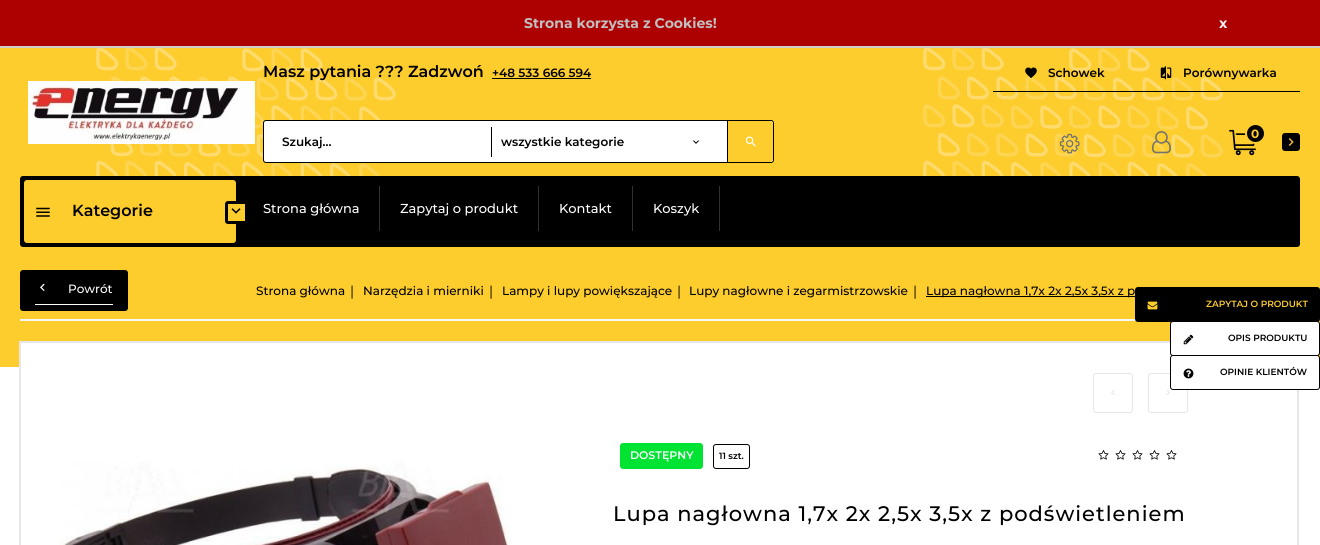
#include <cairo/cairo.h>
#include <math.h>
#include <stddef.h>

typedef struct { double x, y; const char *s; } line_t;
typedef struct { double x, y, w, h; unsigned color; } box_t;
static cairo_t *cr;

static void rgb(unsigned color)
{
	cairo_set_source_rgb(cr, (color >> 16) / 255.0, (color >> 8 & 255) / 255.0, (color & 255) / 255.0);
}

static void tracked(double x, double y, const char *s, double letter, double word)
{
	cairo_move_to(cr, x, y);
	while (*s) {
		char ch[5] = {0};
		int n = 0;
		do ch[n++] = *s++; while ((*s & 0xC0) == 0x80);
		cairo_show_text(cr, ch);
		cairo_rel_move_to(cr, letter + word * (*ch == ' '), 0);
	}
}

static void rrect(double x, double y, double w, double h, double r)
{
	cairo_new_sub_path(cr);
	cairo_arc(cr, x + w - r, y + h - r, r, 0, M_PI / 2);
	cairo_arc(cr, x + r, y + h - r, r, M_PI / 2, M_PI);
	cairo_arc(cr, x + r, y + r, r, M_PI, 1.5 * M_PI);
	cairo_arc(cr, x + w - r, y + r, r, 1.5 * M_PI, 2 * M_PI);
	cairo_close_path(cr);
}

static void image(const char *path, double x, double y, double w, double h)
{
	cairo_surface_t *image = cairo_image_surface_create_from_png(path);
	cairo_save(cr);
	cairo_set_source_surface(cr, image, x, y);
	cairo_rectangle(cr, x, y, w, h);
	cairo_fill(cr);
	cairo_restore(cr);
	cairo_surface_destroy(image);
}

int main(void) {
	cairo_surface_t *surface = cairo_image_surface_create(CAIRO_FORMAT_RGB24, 1320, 545);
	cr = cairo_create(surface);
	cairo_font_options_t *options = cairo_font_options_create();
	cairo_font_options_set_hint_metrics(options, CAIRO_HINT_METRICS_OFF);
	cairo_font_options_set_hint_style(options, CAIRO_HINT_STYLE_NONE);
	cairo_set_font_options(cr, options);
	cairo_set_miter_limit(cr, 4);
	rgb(0xffffff);
	cairo_paint(cr);
	{
		static const box_t items[] = {
			{0, 48, 1320, 319, 0xfdcc2d},
			{0, 0, 1320, 46, 0xad0000},
			{0, 46, 1320, 2, 0xcccccc},
		};
		for (size_t i = 0; i < sizeof items / sizeof *items; i++) {
			rgb(items[i].color);
			cairo_rectangle(cr, items[i].x, items[i].y, items[i].w, items[i].h);
			cairo_fill(cr);
		}
	}
	image("img/1.png", 96, 48, 300, 128);
	image("img/1.png", 923, 48, 300, 128);
	image("img/2.png", 28, 81, 227, 63);
	rgb(0x000000);
	cairo_rectangle(cr, 492, 78, 99, 1);
	cairo_fill(cr);
	rgb(0xffffff);
	rrect(263.5, 120.5, 510, 42, 2.5);
	cairo_fill_preserve(cr);
	rgb(0x000000);
	cairo_set_line_width(cr, 1);
	cairo_stroke(cr);
	cairo_rectangle(cr, 491, 127, 1, 30);
	cairo_fill(cr);
	image("img/3.png", 693, 140, 6, 4);
	rgb(0xfdcc2d);
	cairo_new_path(cr);
	cairo_move_to(cr, 727, 121);
	cairo_line_to(cr, 770, 121);
	cairo_curve_to(cr, 771.5, 121, 773, 122.5, 773, 124);
	cairo_line_to(cr, 773, 159);
	cairo_curve_to(cr, 773, 160.5, 771.5, 162, 770, 162);
	cairo_line_to(cr, 727, 162);
	cairo_close_path(cr);
	cairo_fill(cr);
	rgb(0x000000);
	cairo_rectangle(cr, 727, 121, 1, 41);
	cairo_fill(cr);
	image("img/4.png", 745, 136, 11, 11);
	cairo_rectangle(cr, 993, 91, 307, 1);
	cairo_fill(cr);
	image("img/5.png", 1025, 67, 12, 11);
	image("img/6.png", 1160, 66, 12, 14);
	image("img/7.png", 1059, 133, 21, 21);
	image("img/8.png", 1151, 131, 20, 23);
	image("img/9.png", 1229, 129, 27, 27);
	cairo_arc(cr, 1255.5, 133.5, 9.5, 0, 2 * M_PI);
	cairo_fill_preserve(cr);
	rgb(0xfdcc2d);
	cairo_set_line_width(cr, 2);
	cairo_stroke(cr);
	rgb(0x000000);
	rrect(1282, 133, 18, 18, 3);
	cairo_fill(cr);
	image("img/10.png", 1288, 138, 6, 8);
	rrect(20, 176, 1280, 71, 3);
	cairo_fill(cr);
	rgb(0xfdcc2d);
	rrect(24, 180, 212, 63, 3);
	cairo_fill(cr);
	image("img/11.png", 36, 207, 14, 10);
	rrect(226.5, 202.5, 20, 20, 1.5);
	cairo_fill_preserve(cr);
	rgb(0x000000);
	cairo_set_line_width(cr, 3);
	cairo_stroke(cr);
	image("img/12.png", 231, 208, 10, 6);
	{
		static const box_t items[] = {
			{379, 186, 1, 45, 0x313131},
			{538, 186, 1, 45, 0x313131},
			{632, 186, 1, 45, 0x313131},
			{719, 186, 1, 45, 0x313131},
			{20, 319, 1116, 2, 0xf6f6f6},
		};
		for (size_t i = 0; i < sizeof items / sizeof *items; i++) {
			rgb(items[i].color);
			cairo_rectangle(cr, items[i].x, items[i].y, items[i].w, items[i].h);
			cairo_fill(cr);
		}
	}
	rgb(0x000000);
	rrect(20, 270, 108, 41, 3);
	cairo_fill(cr);
	rgb(0xffffff);
	cairo_rectangle(cr, 35, 304, 78, 1);
	cairo_fill(cr);
	image("img/13.png", 40, 283, 5, 8);
	{
		static const box_t items[] = {
			{926, 296, 209, 1, 0x000000},
			{21, 343, 1276, 24, 0xffffff},
			{19, 341, 1151, 2, 0xe6e6e6},
			{1297, 390, 2, 155, 0xe6e6e6},
			{19, 341, 2, 204, 0xe6e6e6},
		};
		for (size_t i = 0; i < sizeof items / sizeof *items; i++) {
			rgb(items[i].color);
			cairo_rectangle(cr, items[i].x, items[i].y, items[i].w, items[i].h);
			cairo_fill(cr);
		}
	}
	image("img/14.png", 60, 461, 451, 84);
	rgb(0x000000);
	rrect(1135, 287, 185, 35, 3);
	cairo_fill(cr);
	image("img/15.png", 1147, 301, 11, 9);
	rgb(0xffffff);
	rrect(1170.5, 321.5, 149, 34, 2.5);
	cairo_fill_preserve(cr);
	rgb(0x000000);
	cairo_set_line_width(cr, 1);
	cairo_stroke(cr);
	image("img/16.png", 1183, 334, 11, 11);
	rrect(1148.5, 373.5, 39, 39, 2.5);
	rgb(0xe6e6e6);
	cairo_stroke(cr);
	rgb(0xffffff);
	rrect(1170.5, 355.5, 149, 34, 2.5);
	cairo_fill_preserve(cr);
	rgb(0x000000);
	cairo_stroke(cr);
	image("img/17.png", 1183, 368, 11, 11);
	rrect(1093.5, 373.5, 39, 39, 2.5);
	rgb(0xe6e6e6);
	cairo_stroke(cr);
	image("img/18.png", 1111, 390, 4, 5);
	image("img/19.png", 1166, 390, 4, 5);
	rgb(0x01e333);
	rrect(620, 443, 83, 26, 3);
	cairo_fill(cr);
	rrect(713.5, 444.5, 36, 24, 2.5);
	rgb(0x000000);
	cairo_stroke(cr);
	image("img/20.png", 1098, 450, 79, 10);
	cairo_select_font_face(cr, "Montserrat", CAIRO_FONT_SLANT_NORMAL, CAIRO_FONT_WEIGHT_BOLD);
	cairo_set_font_size(cr, 14);
	rgb(0xc0c0c0);
	cairo_move_to(cr, 524, 28);
	cairo_show_text(cr, "Strona korzysta z Cookies!");
	rgb(0xf5f5f5);
	cairo_move_to(cr, 1219, 28);
	cairo_show_text(cr, "x");
	cairo_select_font_face(cr, "Montserrat SemiBold", CAIRO_FONT_SLANT_NORMAL, CAIRO_FONT_WEIGHT_NORMAL);
	cairo_set_font_size(cr, 16);
	rgb(0x000000);
	cairo_move_to(cr, 263, 77);
	cairo_show_text(cr, "Masz pytania ?\077? Zadzwoń");
	cairo_set_font_size(cr, 12);
	{
		static const line_t items[] = {
			{492, 77, "+48 533 666 594"},
			{282, 146, "Szukaj..."},
			{501, 146, "wszystkie kategorie"},
			{1048, 77, "Schowek"},
			{1183, 77, "Porównywarka"},
		};
		for (size_t i = 0; i < sizeof items / sizeof *items; i++) {
			cairo_move_to(cr, items[i].x, items[i].y);
			cairo_show_text(cr, items[i].s);
		}
	}
	cairo_select_font_face(cr, "Montserrat", CAIRO_FONT_SLANT_NORMAL, CAIRO_FONT_WEIGHT_BOLD);
	rgb(0xfdcc2d);
	cairo_move_to(cr, 1251, 138);
	cairo_show_text(cr, "0");
	cairo_select_font_face(cr, "Montserrat SemiBold", CAIRO_FONT_SLANT_NORMAL, CAIRO_FONT_WEIGHT_NORMAL);
	cairo_set_font_size(cr, 16);
	rgb(0x000000);
	cairo_move_to(cr, 72, 216);
	cairo_show_text(cr, "Kategorie");
	cairo_select_font_face(cr, "Montserrat Medium", CAIRO_FONT_SLANT_NORMAL, CAIRO_FONT_WEIGHT_NORMAL);
	cairo_set_font_size(cr, 13);
	rgb(0xffffff);
	{
		static const line_t items[] = {
			{263, 213, "Strona główna"},
			{400, 213, "Zapytaj o produkt"},
			{559, 213, "Kontakt"},
			{653, 213, "Koszyk"},
		};
		for (size_t i = 0; i < sizeof items / sizeof *items; i++) {
			cairo_move_to(cr, items[i].x, items[i].y);
			cairo_show_text(cr, items[i].s);
		}
	}
	cairo_set_font_size(cr, 12);
	cairo_move_to(cr, 68, 293);
	cairo_show_text(cr, "Powrót");
	rgb(0x000000);
	cairo_move_to(cr, 256, 295);
	cairo_show_text(cr, "Strona główna");
	cairo_select_font_face(cr, "Montserrat", CAIRO_FONT_SLANT_NORMAL, CAIRO_FONT_WEIGHT_NORMAL);
	cairo_set_font_size(cr, 14);
	cairo_move_to(cr, 350, 296);
	cairo_show_text(cr, "|");
	cairo_select_font_face(cr, "Montserrat Medium", CAIRO_FONT_SLANT_NORMAL, CAIRO_FONT_WEIGHT_NORMAL);
	cairo_set_font_size(cr, 12);
	cairo_move_to(cr, 363, 295);
	cairo_show_text(cr, "Narzędzia i mierniki");
	cairo_select_font_face(cr, "Montserrat", CAIRO_FONT_SLANT_NORMAL, CAIRO_FONT_WEIGHT_NORMAL);
	cairo_set_font_size(cr, 14);
	cairo_move_to(cr, 489, 296);
	cairo_show_text(cr, "|");
	cairo_select_font_face(cr, "Montserrat Medium", CAIRO_FONT_SLANT_NORMAL, CAIRO_FONT_WEIGHT_NORMAL);
	cairo_set_font_size(cr, 12);
	cairo_move_to(cr, 502, 295);
	cairo_show_text(cr, "Lampy i lupy powiększające");
	cairo_select_font_face(cr, "Montserrat", CAIRO_FONT_SLANT_NORMAL, CAIRO_FONT_WEIGHT_NORMAL);
	cairo_set_font_size(cr, 14);
	cairo_move_to(cr, 677, 296);
	cairo_show_text(cr, "|");
	cairo_select_font_face(cr, "Montserrat Medium", CAIRO_FONT_SLANT_NORMAL, CAIRO_FONT_WEIGHT_NORMAL);
	cairo_set_font_size(cr, 12);
	cairo_move_to(cr, 689, 295);
	cairo_show_text(cr, "Lupy nagłowne i zegarmistrzowskie");
	cairo_select_font_face(cr, "Montserrat", CAIRO_FONT_SLANT_NORMAL, CAIRO_FONT_WEIGHT_NORMAL);
	cairo_set_font_size(cr, 14);
	cairo_move_to(cr, 913, 296);
	cairo_show_text(cr, "|");
	cairo_select_font_face(cr, "Montserrat Medium", CAIRO_FONT_SLANT_NORMAL, CAIRO_FONT_WEIGHT_NORMAL);
	cairo_set_font_size(cr, 12);
	cairo_move_to(cr, 926, 295);
	cairo_show_text(cr, "Lupa nagłowna 1,7x 2x 2,5x 3,5x z p");
	cairo_select_font_face(cr, "Montserrat SemiBold", CAIRO_FONT_SLANT_NORMAL, CAIRO_FONT_WEIGHT_NORMAL);
	cairo_set_font_size(cr, 9);
	rgb(0xfdcc2d);
	cairo_move_to(cr, 1206, 307);
	cairo_show_text(cr, "ZAPYTAJ O PRODUKT");
	rgb(0x000000);
	cairo_move_to(cr, 1228, 341);
	cairo_show_text(cr, "OPIS PRODUKTU");
	cairo_move_to(cr, 1220, 375);
	cairo_show_text(cr, "OPINIE KLIENTÓW");
	cairo_set_font_size(cr, 11);
	rgb(0xffffff);
	cairo_move_to(cr, 630, 459);
	cairo_show_text(cr, "DOSTĘPNY");
	cairo_set_font_size(cr, 9);
	rgb(0x000000);
	cairo_move_to(cr, 719, 459);
	cairo_show_text(cr, "11 szt.");
	cairo_select_font_face(cr, "Montserrat Medium", CAIRO_FONT_SLANT_NORMAL, CAIRO_FONT_WEIGHT_NORMAL);
	cairo_set_font_size(cr, 21);
	tracked(613, 521, "Lupa nagłowna 1,7x 2x 2,5x 3,5x z podświetleniem", 1, 0);
	cairo_surface_write_to_png(surface, "page.png");
	cairo_font_options_destroy(options);
	cairo_destroy(cr);
	cairo_surface_destroy(surface);
	return 0;
}
